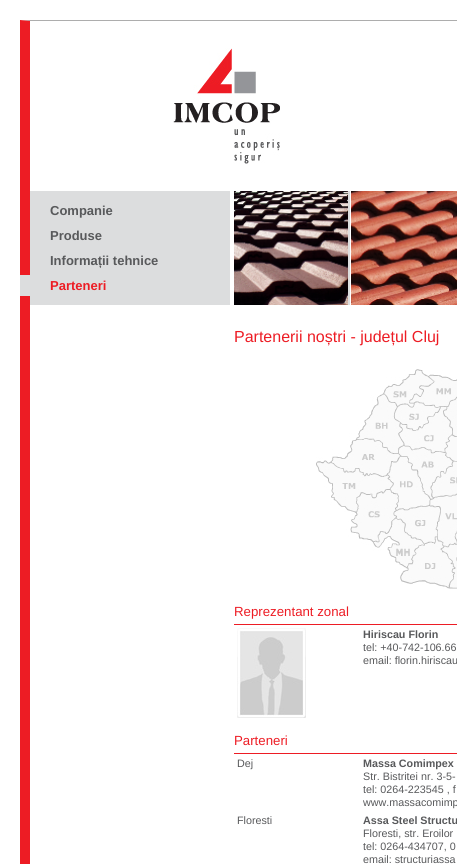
#include <cairo/cairo.h>
#include <math.h>
#include <stddef.h>

typedef struct { double x, y; const char *s; } line_t;
typedef struct { double x, y, w, h; unsigned color; } box_t;
static cairo_t *cr;

static void rgb(unsigned color)
{
	cairo_set_source_rgb(cr, (color >> 16) / 255.0, (color >> 8 & 255) / 255.0, (color & 255) / 255.0);
}

static void image(const char *path, double x, double y, double w, double h)
{
	cairo_surface_t *image = cairo_image_surface_create_from_png(path);
	cairo_save(cr);
	cairo_set_source_surface(cr, image, x, y);
	cairo_rectangle(cr, x, y, w, h);
	cairo_fill(cr);
	cairo_restore(cr);
	cairo_surface_destroy(image);
}

int main(void) {
	cairo_surface_t *surface = cairo_image_surface_create(CAIRO_FORMAT_RGB24, 457, 864);
	cr = cairo_create(surface);
	cairo_font_options_t *options = cairo_font_options_create();
	cairo_font_options_set_hint_metrics(options, CAIRO_HINT_METRICS_OFF);
	cairo_font_options_set_hint_style(options, CAIRO_HINT_STYLE_NONE);
	cairo_set_font_options(cr, options);
	cairo_set_miter_limit(cr, 4);
	rgb(0xffffff);
	cairo_paint(cr);
	rgb(0xadadad);
	cairo_new_path(cr);
	cairo_move_to(cr, 20, 20);
	cairo_line_to(cr, 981, 20);
	cairo_line_to(cr, 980, 21);
	cairo_line_to(cr, 30, 21);
	cairo_close_path(cr);
	cairo_fill(cr);
	rgb(0xed1c24);
	cairo_new_path(cr);
	cairo_move_to(cr, 20, 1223);
	cairo_line_to(cr, 20, 20);
	cairo_line_to(cr, 30, 21);
	cairo_line_to(cr, 30, 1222);
	cairo_close_path(cr);
	cairo_fill(cr);
	image("img/1.png", 173, 48, 107, 116);
	{
		static const box_t items[] = {
			{30, 191, 320, 114, 0xdcddde},
			{20, 275, 10, 21, 0xdcddde},
			{230, 191, 4, 114, 0xffffff},
		};
		for (size_t i = 0; i < sizeof items / sizeof *items; i++) {
			rgb(items[i].color);
			cairo_rectangle(cr, items[i].x, items[i].y, items[i].w, items[i].h);
			cairo_fill(cr);
		}
	}
	image("img/2.png", 234, 191, 223, 114);
	image("img/3.png", 316, 369, 141, 220);
	rgb(0xed1c24);
	cairo_rectangle(cr, 234, 624, 223, 1);
	cairo_fill(cr);
	image("img/4.png", 237, 628, 69, 90);
	cairo_rectangle(cr, 234, 753, 223, 1);
	cairo_fill(cr);
	cairo_select_font_face(cr, "Liberation Sans", CAIRO_FONT_SLANT_NORMAL, CAIRO_FONT_WEIGHT_BOLD);
	cairo_set_font_size(cr, 13);
	rgb(0x58595b);
	{
		static const line_t items[] = {
			{50, 215, "Companie"},
			{50, 240, "Produse"},
			{50, 265, "Informații tehnice"},
		};
		for (size_t i = 0; i < sizeof items / sizeof *items; i++) {
			cairo_move_to(cr, items[i].x, items[i].y);
			cairo_show_text(cr, items[i].s);
		}
	}
	rgb(0xed1c24);
	cairo_move_to(cr, 50, 290);
	cairo_show_text(cr, "Parteneri");
	cairo_select_font_face(cr, "Liberation Sans", CAIRO_FONT_SLANT_NORMAL, CAIRO_FONT_WEIGHT_NORMAL);
	cairo_set_font_size(cr, 16);
	cairo_move_to(cr, 234, 342);
	cairo_show_text(cr, "Partenerii noștri - județul Cluj");
	cairo_set_font_size(cr, 13.25);
	cairo_move_to(cr, 234, 616);
	cairo_show_text(cr, "Reprezentant zonal");
	cairo_select_font_face(cr, "Liberation Sans", CAIRO_FONT_SLANT_NORMAL, CAIRO_FONT_WEIGHT_BOLD);
	cairo_set_font_size(cr, 10.75);
	rgb(0x58595b);
	cairo_move_to(cr, 363, 638);
	cairo_show_text(cr, "Hiriscau Florin");
	cairo_select_font_face(cr, "Liberation Sans", CAIRO_FONT_SLANT_NORMAL, CAIRO_FONT_WEIGHT_NORMAL);
	cairo_move_to(cr, 363, 651);
	cairo_show_text(cr, "tel: +40-742-106.66");
	cairo_move_to(cr, 363, 664);
	cairo_show_text(cr, "email: florin.hiriscau");
	cairo_set_font_size(cr, 13.25);
	rgb(0xed1c24);
	cairo_move_to(cr, 234, 745);
	cairo_show_text(cr, "Parteneri");
	cairo_set_font_size(cr, 10.75);
	rgb(0x58595b);
	cairo_move_to(cr, 237, 767);
	cairo_show_text(cr, "Dej");
	cairo_select_font_face(cr, "Liberation Sans", CAIRO_FONT_SLANT_NORMAL, CAIRO_FONT_WEIGHT_BOLD);
	cairo_move_to(cr, 363, 767);
	cairo_show_text(cr, "Massa Comimpex");
	cairo_select_font_face(cr, "Liberation Sans", CAIRO_FONT_SLANT_NORMAL, CAIRO_FONT_WEIGHT_NORMAL);
	{
		static const line_t items[] = {
			{363, 780, "Str. Bistritei nr. 3-5-"},
			{363, 793, "tel: 0264-223545 , f"},
			{363, 806, "www.massacomimp"},
			{237, 824, "Floresti"},
		};
		for (size_t i = 0; i < sizeof items / sizeof *items; i++) {
			cairo_move_to(cr, items[i].x, items[i].y);
			cairo_show_text(cr, items[i].s);
		}
	}
	cairo_select_font_face(cr, "Liberation Sans", CAIRO_FONT_SLANT_NORMAL, CAIRO_FONT_WEIGHT_BOLD);
	cairo_move_to(cr, 363, 824);
	cairo_show_text(cr, "Assa Steel Structu");
	cairo_select_font_face(cr, "Liberation Sans", CAIRO_FONT_SLANT_NORMAL, CAIRO_FONT_WEIGHT_NORMAL);
	{
		static const line_t items[] = {
			{363, 837, "Floresti, str. Eroilor"},
			{363, 850, "tel: 0264-434707, 0"},
			{363, 863, "email: structuriassa"},
		};
		for (size_t i = 0; i < sizeof items / sizeof *items; i++) {
			cairo_move_to(cr, items[i].x, items[i].y);
			cairo_show_text(cr, items[i].s);
		}
	}
	cairo_surface_write_to_png(surface, "page.png");
	cairo_font_options_destroy(options);
	cairo_destroy(cr);
	cairo_surface_destroy(surface);
	return 0;
}
